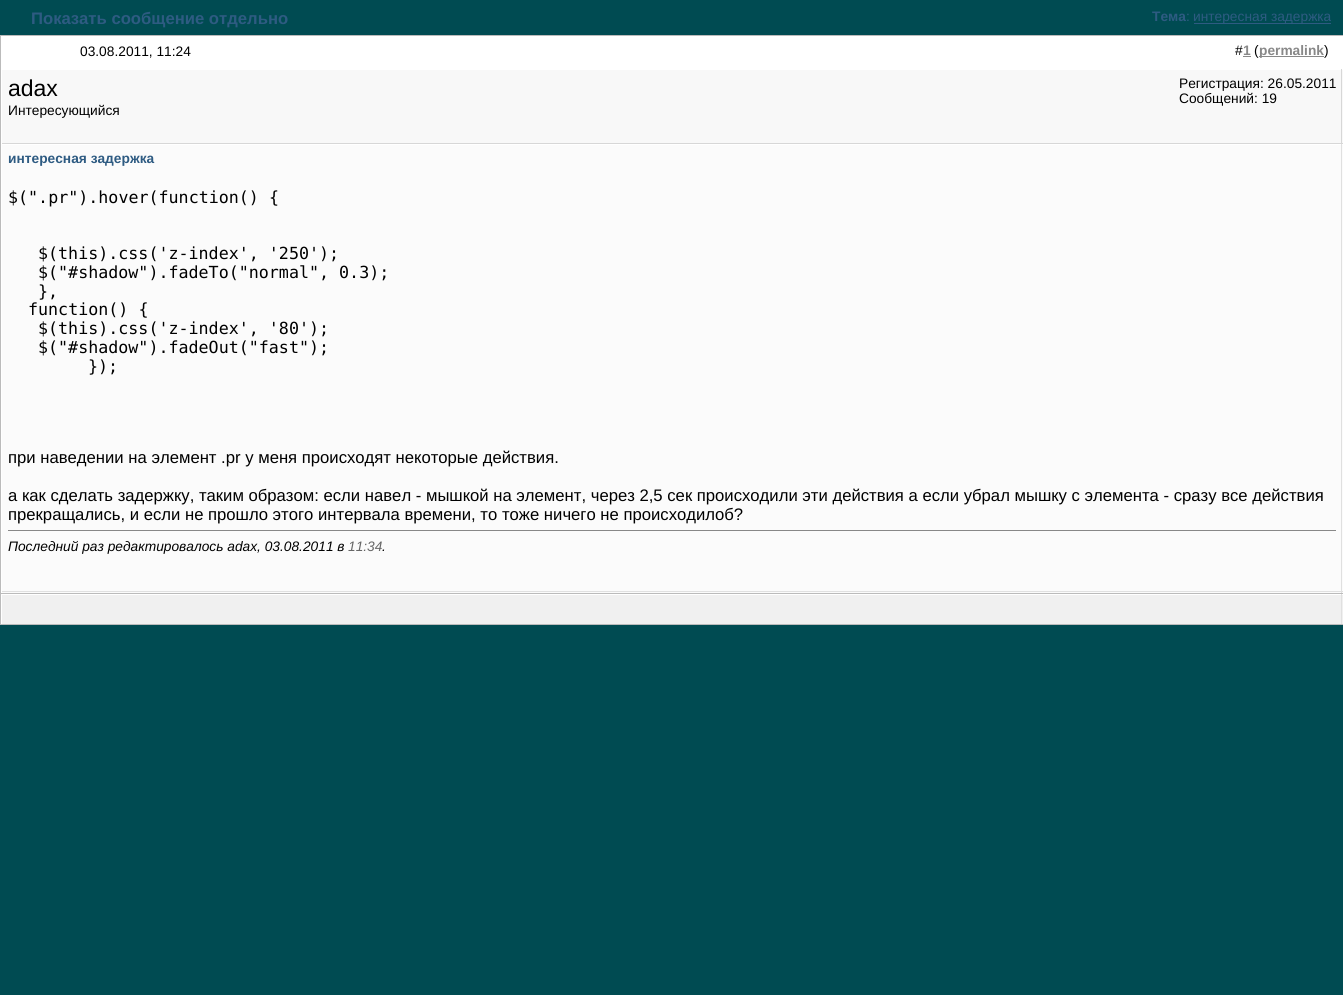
#include <cairo/cairo.h>
#include <math.h>
#include <stddef.h>

typedef struct { double x, y; const char *s; } line_t;
typedef struct { double x, y, w, h; unsigned color; } box_t;
static cairo_t *cr;

static void rgb(unsigned color)
{
	cairo_set_source_rgb(cr, (color >> 16) / 255.0, (color >> 8 & 255) / 255.0, (color & 255) / 255.0);
}

int main(void) {
	cairo_surface_t *surface = cairo_image_surface_create(CAIRO_FORMAT_RGB24, 1343, 995);
	cr = cairo_create(surface);
	cairo_font_options_t *options = cairo_font_options_create();
	cairo_font_options_set_hint_metrics(options, CAIRO_HINT_METRICS_OFF);
	cairo_font_options_set_hint_style(options, CAIRO_HINT_STYLE_NONE);
	cairo_set_font_options(cr, options);
	cairo_set_miter_limit(cr, 4);
	rgb(0x004b52);
	cairo_paint(cr);
	rgb(0x2e5b82);
	cairo_rectangle(cr, 1194, 23, 137, 1);
	cairo_fill(cr);
	cairo_rectangle(cr, 0.5, 35.5, 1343, 558);
	rgb(0xbbbbbb);
	cairo_set_line_width(cr, 1);
	cairo_stroke(cr);
	{
		static const box_t items[] = {
			{1, 36, 1342, 34, 0xffffff},
			{1243, 56, 8, 1, 0x888888},
			{1259, 56, 65, 1, 0x888888},
			{2, 70, 1341, 73, 0xf8f8f8},
			{1341, 69, 1, 75, 0xd7d7d7},
			{1, 143, 1342, 1, 0xd7d7d7},
			{1, 69, 1, 75, 0xffffff},
			{2, 145, 1341, 448, 0xfbfbfb},
			{1, 144, 1342, 1, 0xffffff},
			{1341, 144, 1, 449, 0xe0e0e0},
			{1, 591, 1342, 1, 0xe0e0e0},
			{1, 144, 1, 449, 0xffffff},
			{8, 530, 1328, 1, 0x888888},
			{0, 624, 1343, 1, 0xbbbbbb},
			{0, 594, 1, 31, 0xbbbbbb},
			{2, 595, 1341, 29, 0xf0f0f0},
			{1, 594, 1342, 1, 0xffffff},
			{1341, 594, 1, 30, 0xe0e0e0},
			{1, 594, 1, 30, 0xffffff},
		};
		for (size_t i = 0; i < sizeof items / sizeof *items; i++) {
			rgb(items[i].color);
			cairo_rectangle(cr, items[i].x, items[i].y, items[i].w, items[i].h);
			cairo_fill(cr);
		}
	}
	cairo_select_font_face(cr, "Liberation Sans", CAIRO_FONT_SLANT_NORMAL, CAIRO_FONT_WEIGHT_BOLD);
	cairo_set_font_size(cr, 16.67);
	rgb(0x2e5b82);
	cairo_move_to(cr, 31, 24);
	cairo_show_text(cr, "Показать сообщение отдельно");
	cairo_set_font_size(cr, 13.75);
	cairo_move_to(cr, 1152, 21);
	cairo_show_text(cr, "Тема");
	cairo_select_font_face(cr, "Liberation Sans", CAIRO_FONT_SLANT_NORMAL, CAIRO_FONT_WEIGHT_NORMAL);
	cairo_move_to(cr, 1186, 21);
	cairo_show_text(cr, ":");
	cairo_move_to(cr, 1193, 21);
	cairo_show_text(cr, "интересная задержка");
	rgb(0x000000);
	cairo_move_to(cr, 80, 56);
	cairo_show_text(cr, "03.08.2011, 11:24");
	cairo_move_to(cr, 1235, 55);
	cairo_show_text(cr, "#");
	cairo_select_font_face(cr, "Liberation Sans", CAIRO_FONT_SLANT_NORMAL, CAIRO_FONT_WEIGHT_BOLD);
	rgb(0x888888);
	cairo_move_to(cr, 1243, 55);
	cairo_show_text(cr, "1");
	cairo_select_font_face(cr, "Liberation Sans", CAIRO_FONT_SLANT_NORMAL, CAIRO_FONT_WEIGHT_NORMAL);
	rgb(0x000000);
	cairo_move_to(cr, 1254, 55);
	cairo_show_text(cr, "(");
	cairo_select_font_face(cr, "Liberation Sans", CAIRO_FONT_SLANT_NORMAL, CAIRO_FONT_WEIGHT_BOLD);
	rgb(0x888888);
	cairo_move_to(cr, 1259, 55);
	cairo_show_text(cr, "permalink");
	cairo_select_font_face(cr, "Liberation Sans", CAIRO_FONT_SLANT_NORMAL, CAIRO_FONT_WEIGHT_NORMAL);
	rgb(0x000000);
	cairo_move_to(cr, 1324, 55);
	cairo_show_text(cr, ")");
	cairo_set_font_size(cr, 23);
	cairo_move_to(cr, 8, 96);
	cairo_show_text(cr, "adax");
	cairo_set_font_size(cr, 13.75);
	{
		static const line_t items[] = {
			{8, 115, "Интересующийся"},
			{1179, 88, "Регистрация: 26.05.2011"},
			{1179, 103, "Сообщений: 19"},
		};
		for (size_t i = 0; i < sizeof items / sizeof *items; i++) {
			cairo_move_to(cr, items[i].x, items[i].y);
			cairo_show_text(cr, items[i].s);
		}
	}
	cairo_select_font_face(cr, "Liberation Sans", CAIRO_FONT_SLANT_NORMAL, CAIRO_FONT_WEIGHT_BOLD);
	rgb(0x2e5b82);
	cairo_move_to(cr, 8, 163);
	cairo_show_text(cr, "интересная задержка");
	cairo_select_font_face(cr, "DejaVu Sans Mono", CAIRO_FONT_SLANT_NORMAL, CAIRO_FONT_WEIGHT_NORMAL);
	cairo_set_font_size(cr, 16.67);
	rgb(0x000000);
	{
		static const line_t items[] = {
			{8, 203, "$(\".pr\").hover(function() {"},
			{38, 259, "$(this).css('z-index', '250');"},
			{38, 278, "$(\"#shadow\").fadeTo(\"normal\", 0.3);"},
			{38, 297, "},"},
			{28, 315, "function() {"},
			{38, 334, "$(this).css('z-index', '80');"},
			{38, 353, "$(\"#shadow\").fadeOut(\"fast\");"},
			{88, 372, "});"},
		};
		for (size_t i = 0; i < sizeof items / sizeof *items; i++) {
			cairo_move_to(cr, items[i].x, items[i].y);
			cairo_show_text(cr, items[i].s);
		}
	}
	cairo_select_font_face(cr, "Liberation Sans", CAIRO_FONT_SLANT_NORMAL, CAIRO_FONT_WEIGHT_NORMAL);
	{
		static const line_t items[] = {
			{8, 463, "при наведении на элемент .pr у меня происходят некоторые действия."},
			{8, 501, "а как сделать задержку, таким образом: если навел - мышкой на элемент, через 2,5 сек происходили эти действия а если убрал мышку с элемента - сразу все действия"},
			{8, 520, "прекращались, и если не прошло этого интервала времени, то тоже ничего не происходилоб?"},
		};
		for (size_t i = 0; i < sizeof items / sizeof *items; i++) {
			cairo_move_to(cr, items[i].x, items[i].y);
			cairo_show_text(cr, items[i].s);
		}
	}
	cairo_select_font_face(cr, "Liberation Sans", CAIRO_FONT_SLANT_ITALIC, CAIRO_FONT_WEIGHT_NORMAL);
	cairo_set_font_size(cr, 13.75);
	cairo_move_to(cr, 8, 551);
	cairo_show_text(cr, "Последний раз редактировалось adax, 03.08.2011 в");
	rgb(0x666666);
	cairo_move_to(cr, 348, 551);
	cairo_show_text(cr, "11:34");
	rgb(0x000000);
	cairo_move_to(cr, 382, 551);
	cairo_show_text(cr, ".");
	cairo_surface_write_to_png(surface, "page.png");
	cairo_font_options_destroy(options);
	cairo_destroy(cr);
	cairo_surface_destroy(surface);
	return 0;
}
